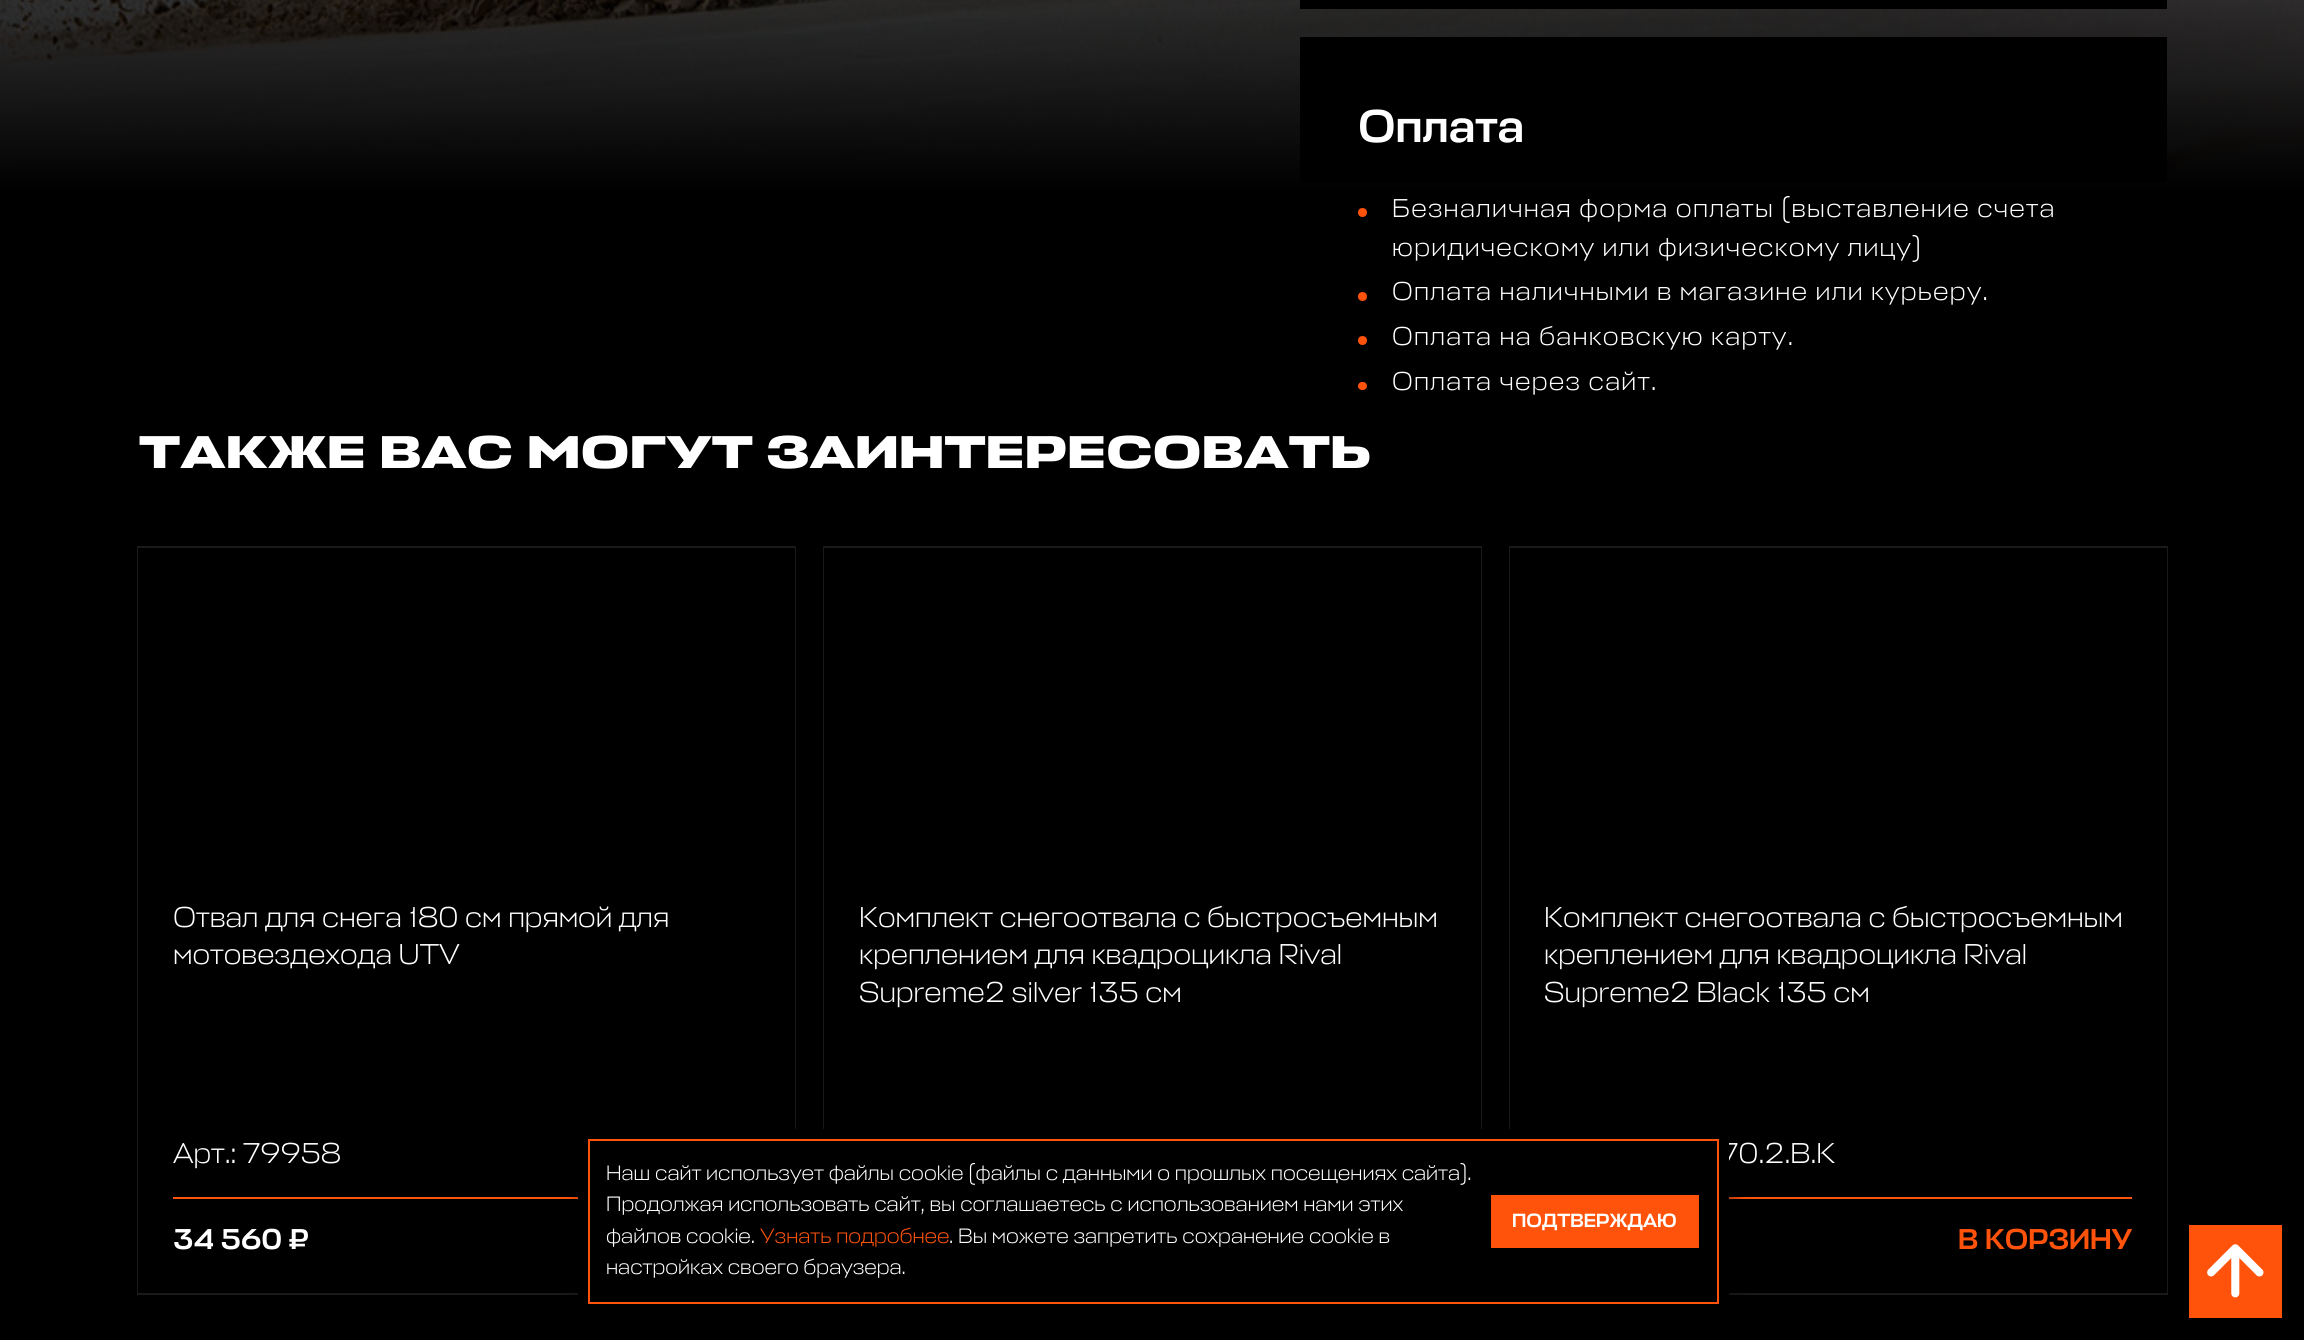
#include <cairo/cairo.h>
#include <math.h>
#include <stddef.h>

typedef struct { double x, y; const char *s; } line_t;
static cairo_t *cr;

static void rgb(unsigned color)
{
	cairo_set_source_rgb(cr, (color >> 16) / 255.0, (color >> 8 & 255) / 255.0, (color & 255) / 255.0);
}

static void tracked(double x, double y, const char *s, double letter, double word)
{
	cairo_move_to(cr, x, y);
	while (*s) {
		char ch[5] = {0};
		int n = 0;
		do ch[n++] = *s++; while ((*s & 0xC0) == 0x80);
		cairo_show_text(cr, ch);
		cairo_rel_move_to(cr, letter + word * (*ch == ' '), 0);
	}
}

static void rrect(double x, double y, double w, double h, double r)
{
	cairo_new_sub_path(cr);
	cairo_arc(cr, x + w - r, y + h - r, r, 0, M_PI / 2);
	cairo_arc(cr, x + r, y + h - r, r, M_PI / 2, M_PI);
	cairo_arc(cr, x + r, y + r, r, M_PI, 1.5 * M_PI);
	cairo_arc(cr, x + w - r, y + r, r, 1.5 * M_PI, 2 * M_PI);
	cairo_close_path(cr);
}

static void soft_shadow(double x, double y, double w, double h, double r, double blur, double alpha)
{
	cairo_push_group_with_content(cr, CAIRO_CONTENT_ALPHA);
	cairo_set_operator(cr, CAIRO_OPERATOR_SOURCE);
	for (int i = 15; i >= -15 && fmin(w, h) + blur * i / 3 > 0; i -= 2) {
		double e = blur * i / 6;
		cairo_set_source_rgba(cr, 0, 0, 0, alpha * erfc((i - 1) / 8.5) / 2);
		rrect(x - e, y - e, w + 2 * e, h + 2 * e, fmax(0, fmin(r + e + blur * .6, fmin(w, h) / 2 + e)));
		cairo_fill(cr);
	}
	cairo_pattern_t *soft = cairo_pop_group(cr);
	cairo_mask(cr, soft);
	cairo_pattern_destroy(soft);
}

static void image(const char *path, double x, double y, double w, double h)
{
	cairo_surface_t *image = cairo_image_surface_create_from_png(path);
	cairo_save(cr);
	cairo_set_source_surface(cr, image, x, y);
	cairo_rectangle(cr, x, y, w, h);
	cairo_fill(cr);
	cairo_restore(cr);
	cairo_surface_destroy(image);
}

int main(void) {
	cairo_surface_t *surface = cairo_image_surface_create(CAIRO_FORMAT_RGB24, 2304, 1340);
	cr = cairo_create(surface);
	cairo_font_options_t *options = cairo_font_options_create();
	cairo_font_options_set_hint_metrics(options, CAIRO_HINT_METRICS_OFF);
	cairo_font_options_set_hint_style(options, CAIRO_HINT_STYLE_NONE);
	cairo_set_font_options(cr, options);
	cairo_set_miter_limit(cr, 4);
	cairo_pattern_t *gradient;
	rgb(0x000000);
	cairo_paint(cr);
	image("img/1.png", 0, 0, 2304, 190);
	gradient = cairo_pattern_create_linear(1152, -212, 1152, 192);
	cairo_pattern_add_color_stop_rgba(gradient, 0, 0, 0, 0, 0);
	cairo_pattern_add_color_stop_rgba(gradient, 1, 0, 0, 0, 1);
	cairo_set_source(cr, gradient);
	cairo_pattern_destroy(gradient);
	cairo_rectangle(cr, 0, 0, 2304, 190);
	cairo_fill(cr);
	rgb(0x000000);
	cairo_rectangle(cr, 1300, 0, 867, 9);
	cairo_fill(cr);
	cairo_rectangle(cr, 1300, 37, 867, 145);
	cairo_fill(cr);
	rgb(0xff530c);
	cairo_arc(cr, 1362.5, 212.5, 4.5, 0, 2 * M_PI);
	cairo_fill(cr);
	cairo_arc(cr, 1362.5, 296.5, 4.5, 0, 2 * M_PI);
	cairo_fill(cr);
	cairo_arc(cr, 1362.5, 340.5, 4.5, 0, 2 * M_PI);
	cairo_fill(cr);
	rrect(1358, 382, 9, 8, 4);
	cairo_fill(cr);
	cairo_rectangle(cr, 138, 547, 657, 747);
	rgb(0x1a1a1a);
	cairo_stroke(cr);
	rgb(0x000000);
	cairo_rectangle(cr, 138, 548, 657, 745);
	cairo_fill(cr);
	rgb(0xff530c);
	cairo_rectangle(cr, 173, 1197, 405, 2);
	cairo_fill(cr);
	cairo_rectangle(cr, 824, 547, 657, 747);
	rgb(0x1a1a1a);
	cairo_stroke(cr);
	rgb(0x000000);
	cairo_rectangle(cr, 824, 548, 657, 581);
	cairo_fill(cr);
	cairo_rectangle(cr, 1510, 547, 657, 747);
	rgb(0x1a1a1a);
	cairo_stroke(cr);
	rgb(0x000000);
	cairo_rectangle(cr, 1510, 548, 657, 745);
	cairo_fill(cr);
	rgb(0xff530c);
	cairo_rectangle(cr, 1729, 1197, 403, 2);
	cairo_fill(cr);
	rgb(0x000000);
	soft_shadow(581, 1134, 1152, 186, 0, 9, 0.4);
	rgb(0xff530c);
	cairo_rectangle(cr, 2189, 1225, 93, 93);
	cairo_fill(cr);
	image("img/2.png", 2207, 1244, 57, 54);
	cairo_select_font_face(cr, "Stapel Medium", CAIRO_FONT_SLANT_NORMAL, CAIRO_FONT_WEIGHT_NORMAL);
	cairo_set_font_size(cr, 46.2);
	rgb(0xffffff);
	cairo_move_to(cr, 1358, 142);
	cairo_show_text(cr, "Оплата");
	cairo_select_font_face(cr, "Stapel Light", CAIRO_FONT_SLANT_NORMAL, CAIRO_FONT_WEIGHT_NORMAL);
	cairo_set_font_size(cr, 26);
	{
		static const line_t items[] = {
			{1392, 217, "Безналичная форма оплаты (выставление счета"},
			{1392, 256, "юридическому или физическому лицу)"},
			{1392, 300, "Оплата наличными в магазине или курьеру."},
			{1392, 345, "Оплата на банковскую карту."},
			{1392, 390, "Оплата через сайт."},
		};
		for (size_t i = 0; i < sizeof items / sizeof *items; i++) {
			tracked(items[i].x, items[i].y, items[i].s, 1.3, 0);
		}
	}
	cairo_select_font_face(cr, "Stapel", CAIRO_FONT_SLANT_NORMAL, CAIRO_FONT_WEIGHT_BOLD);
	cairo_set_font_size(cr, 46.2);
	cairo_move_to(cr, 139, 468);
	cairo_show_text(cr, "ТАКЖЕ ВАС МОГУТ ЗАИНТЕРЕСОВАТЬ");
	cairo_select_font_face(cr, "Stapel Light", CAIRO_FONT_SLANT_NORMAL, CAIRO_FONT_WEIGHT_NORMAL);
	cairo_set_font_size(cr, 28.9);
	{
		static const line_t items[] = {
			{173, 927, "Отвал для снега 180 см прямой для"},
			{173, 964, "мотовездехода UTV"},
			{173, 1163, "Арт.: 79958"},
		};
		for (size_t i = 0; i < sizeof items / sizeof *items; i++) {
			cairo_move_to(cr, items[i].x, items[i].y);
			cairo_show_text(cr, items[i].s);
		}
	}
	cairo_select_font_face(cr, "Stapel Medium", CAIRO_FONT_SLANT_NORMAL, CAIRO_FONT_WEIGHT_NORMAL);
	cairo_move_to(cr, 173, 1249);
	cairo_show_text(cr, "34 560 ₽");
	cairo_select_font_face(cr, "Stapel Light", CAIRO_FONT_SLANT_NORMAL, CAIRO_FONT_WEIGHT_NORMAL);
	{
		static const line_t items[] = {
			{859, 927, "Комплект снегоотвала с быстросъемным"},
			{859, 964, "креплением для квадроцикла Rival"},
			{859, 1002, "Supreme2 silver 135 см"},
			{1544, 927, "Комплект снегоотвала с быстросъемным"},
			{1544, 964, "креплением для квадроцикла Rival"},
			{1544, 1002, "Supreme2 Black 135 см"},
			{1721, 1163, "70.2.B.K"},
		};
		for (size_t i = 0; i < sizeof items / sizeof *items; i++) {
			cairo_move_to(cr, items[i].x, items[i].y);
			cairo_show_text(cr, items[i].s);
		}
	}
	cairo_select_font_face(cr, "Stapel Medium", CAIRO_FONT_SLANT_NORMAL, CAIRO_FONT_WEIGHT_NORMAL);
	rgb(0xff530c);
	cairo_move_to(cr, 1958, 1249);
	cairo_show_text(cr, "В КОРЗИНУ");
	rgb(0x000000);
	cairo_rectangle(cr, 578, 1129, 1151, 166);
	cairo_fill(cr);
	cairo_rectangle(cr, 589, 1140, 1129, 163);
	rgb(0xff530c);
	cairo_stroke(cr);
	cairo_select_font_face(cr, "Stapel Light", CAIRO_FONT_SLANT_NORMAL, CAIRO_FONT_WEIGHT_NORMAL);
	cairo_set_font_size(cr, 21);
	rgb(0xffffff);
	{
		static const line_t items[] = {
			{606, 1180, "Наш сайт использует файлы cookie (файлы с данными о прошлых посещениях сайта)."},
			{606, 1211, "Продолжая использовать сайт, вы соглашаетесь с использованием нами этих"},
			{606, 1243, "файлов cookie."},
		};
		for (size_t i = 0; i < sizeof items / sizeof *items; i++) {
			cairo_move_to(cr, items[i].x, items[i].y);
			cairo_show_text(cr, items[i].s);
		}
	}
	rgb(0xff530c);
	cairo_move_to(cr, 760, 1243);
	cairo_show_text(cr, "Узнать подробнее");
	rgb(0xffffff);
	cairo_move_to(cr, 949, 1243);
	cairo_show_text(cr, ". Вы можете запретить сохранение cookie в");
	cairo_move_to(cr, 606, 1274);
	cairo_show_text(cr, "настройках своего браузера.");
	rgb(0xff530c);
	cairo_rectangle(cr, 1491, 1195, 208, 53);
	cairo_fill(cr);
	cairo_select_font_face(cr, "Stapel Medium", CAIRO_FONT_SLANT_NORMAL, CAIRO_FONT_WEIGHT_NORMAL);
	cairo_set_font_size(cr, 19.25);
	rgb(0xffffff);
	cairo_move_to(cr, 1512, 1227);
	cairo_show_text(cr, "ПОДТВЕРЖДАЮ");
	cairo_surface_write_to_png(surface, "page.png");
	cairo_font_options_destroy(options);
	cairo_destroy(cr);
	cairo_surface_destroy(surface);
	return 0;
}
